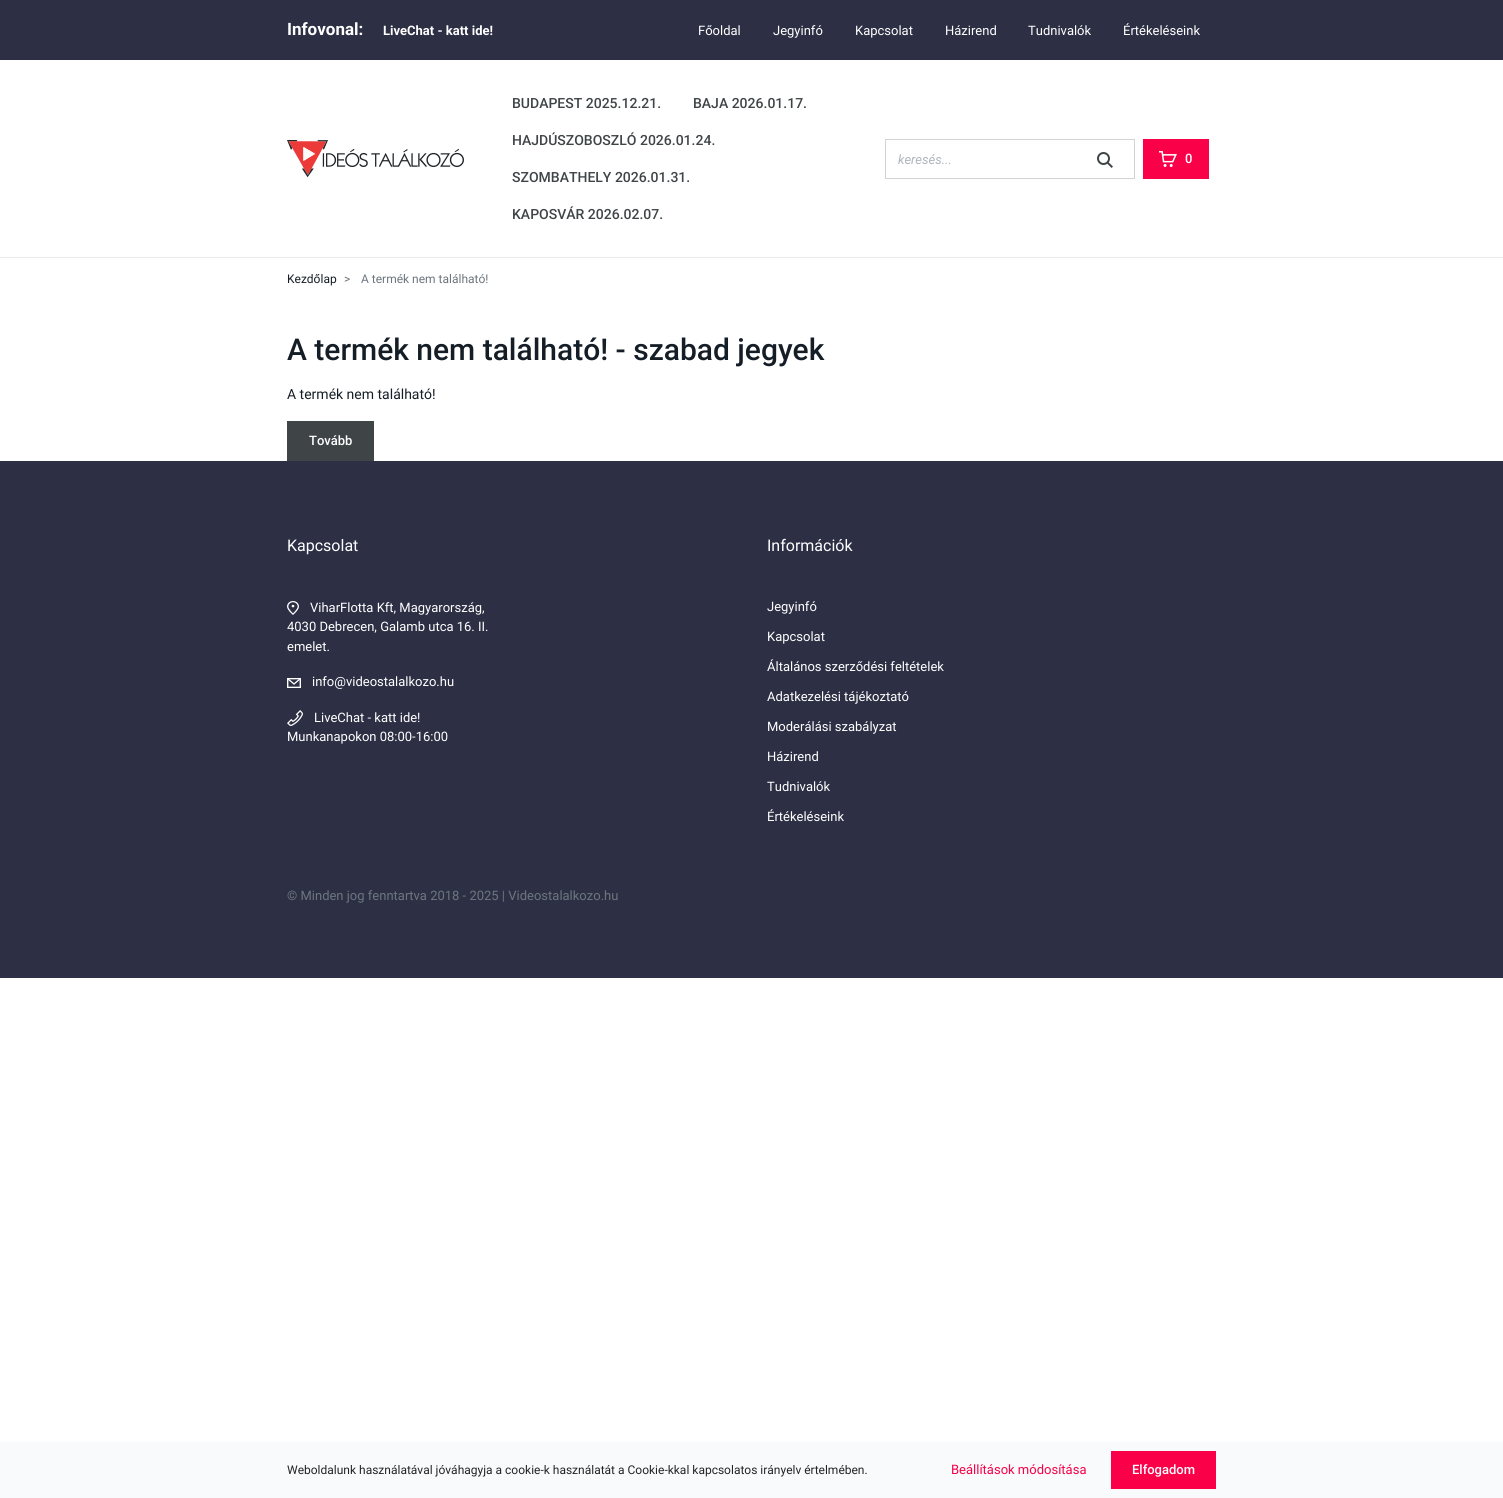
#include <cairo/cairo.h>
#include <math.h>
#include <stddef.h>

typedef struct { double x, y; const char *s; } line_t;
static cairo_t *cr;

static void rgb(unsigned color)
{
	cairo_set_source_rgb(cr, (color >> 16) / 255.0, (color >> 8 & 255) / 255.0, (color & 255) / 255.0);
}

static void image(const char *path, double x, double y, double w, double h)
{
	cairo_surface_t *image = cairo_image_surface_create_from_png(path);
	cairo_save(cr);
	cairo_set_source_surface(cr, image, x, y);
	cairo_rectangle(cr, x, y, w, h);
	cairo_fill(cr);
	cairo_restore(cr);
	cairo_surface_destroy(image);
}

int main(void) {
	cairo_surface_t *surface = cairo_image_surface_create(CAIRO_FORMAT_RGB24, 1503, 1498);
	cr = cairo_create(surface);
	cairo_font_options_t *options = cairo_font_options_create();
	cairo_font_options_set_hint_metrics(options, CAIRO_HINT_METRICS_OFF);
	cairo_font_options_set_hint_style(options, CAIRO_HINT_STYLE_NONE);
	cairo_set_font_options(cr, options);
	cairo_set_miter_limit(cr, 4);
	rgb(0xffffff);
	cairo_paint(cr);
	rgb(0xe9ecef);
	cairo_rectangle(cr, 0, 257, 1503, 1);
	cairo_fill(cr);
	rgb(0x2d3045);
	cairo_rectangle(cr, 0, 0, 1503, 60);
	cairo_fill(cr);
	image("img/1.png", 287, 140, 177, 38);
	cairo_rectangle(cr, 885.5, 139.5, 249, 39);
	rgb(0xd3d3d3);
	cairo_set_line_width(cr, 1);
	cairo_stroke(cr);
	image("img/2.png", 1097, 152, 16, 16);
	rgb(0xf90048);
	cairo_rectangle(cr, 1143, 139, 66, 40);
	cairo_fill(cr);
	image("img/3.png", 1159, 151, 18, 16);
	rgb(0x3f4547);
	cairo_rectangle(cr, 287, 421, 87, 40);
	cairo_fill(cr);
	rgb(0x2d3045);
	cairo_rectangle(cr, 0, 461, 1503, 517);
	cairo_fill(cr);
	image("img/4.png", 287, 601, 12, 14);
	image("img/5.png", 287, 678, 14, 10);
	image("img/6.png", 287, 710, 16, 16);
	rgb(0xf9fafb);
	cairo_rectangle(cr, 0, 1442, 1503, 56);
	cairo_fill(cr);
	rgb(0xf90048);
	cairo_rectangle(cr, 1111, 1451, 105, 38);
	cairo_fill(cr);
	cairo_select_font_face(cr, "Roboto", CAIRO_FONT_SLANT_NORMAL, CAIRO_FONT_WEIGHT_BOLD);
	cairo_set_font_size(cr, 17);
	rgb(0xffffff);
	cairo_move_to(cr, 287, 35);
	cairo_show_text(cr, "Infovonal:");
	cairo_set_font_size(cr, 13);
	cairo_move_to(cr, 383, 35);
	cairo_show_text(cr, "LiveChat - katt ide!");
	cairo_select_font_face(cr, "Roboto", CAIRO_FONT_SLANT_NORMAL, CAIRO_FONT_WEIGHT_NORMAL);
	{
		static const line_t items[] = {
			{698, 35, "Főoldal"},
			{773, 35, "Jegyinfó"},
			{855, 35, "Kapcsolat"},
			{945, 35, "Házirend"},
			{1028, 35, "Tudnivalók"},
			{1123, 35, "Értékeléseink"},
		};
		for (size_t i = 0; i < sizeof items / sizeof *items; i++) {
			cairo_move_to(cr, items[i].x, items[i].y);
			cairo_show_text(cr, items[i].s);
		}
	}
	cairo_select_font_face(cr, "Roboto Medium", CAIRO_FONT_SLANT_NORMAL, CAIRO_FONT_WEIGHT_NORMAL);
	cairo_set_font_size(cr, 14);
	rgb(0x3f4547);
	{
		static const line_t items[] = {
			{512, 108, "BUDAPEST 2025.12.21."},
			{693, 108, "BAJA 2026.01.17."},
			{512, 145, "HAJDÚSZOBOSZLÓ 2026.01.24."},
			{512, 182, "SZOMBATHELY 2026.01.31."},
			{512, 219, "KAPOSVÁR 2026.02.07."},
		};
		for (size_t i = 0; i < sizeof items / sizeof *items; i++) {
			cairo_move_to(cr, items[i].x, items[i].y);
			cairo_show_text(cr, items[i].s);
		}
	}
	cairo_select_font_face(cr, "Roboto", CAIRO_FONT_SLANT_ITALIC, CAIRO_FONT_WEIGHT_NORMAL);
	cairo_set_font_size(cr, 13);
	rgb(0xadb5bd);
	cairo_move_to(cr, 898, 164);
	cairo_show_text(cr, "keresés...");
	cairo_select_font_face(cr, "Roboto Medium", CAIRO_FONT_SLANT_NORMAL, CAIRO_FONT_WEIGHT_NORMAL);
	rgb(0xffffff);
	cairo_move_to(cr, 1185, 163);
	cairo_show_text(cr, "0");
	cairo_select_font_face(cr, "Roboto", CAIRO_FONT_SLANT_NORMAL, CAIRO_FONT_WEIGHT_NORMAL);
	cairo_set_font_size(cr, 12);
	rgb(0x151e26);
	cairo_move_to(cr, 287, 283);
	cairo_show_text(cr, "Kezdőlap");
	rgb(0x6c757d);
	cairo_move_to(cr, 344, 283);
	cairo_show_text(cr, ">");
	cairo_move_to(cr, 361, 283);
	cairo_show_text(cr, "A termék nem található!");
	cairo_select_font_face(cr, "Roboto Medium", CAIRO_FONT_SLANT_NORMAL, CAIRO_FONT_WEIGHT_NORMAL);
	cairo_set_font_size(cr, 30);
	rgb(0x151e26);
	cairo_move_to(cr, 287, 360);
	cairo_show_text(cr, "A termék nem található! - szabad jegyek");
	cairo_select_font_face(cr, "Roboto", CAIRO_FONT_SLANT_NORMAL, CAIRO_FONT_WEIGHT_NORMAL);
	cairo_set_font_size(cr, 14);
	cairo_move_to(cr, 287, 399);
	cairo_show_text(cr, "A termék nem található!");
	cairo_select_font_face(cr, "Roboto Medium", CAIRO_FONT_SLANT_NORMAL, CAIRO_FONT_WEIGHT_NORMAL);
	cairo_set_font_size(cr, 13);
	rgb(0xffffff);
	cairo_move_to(cr, 309, 445);
	cairo_show_text(cr, "Tovább");
	cairo_select_font_face(cr, "Roboto", CAIRO_FONT_SLANT_NORMAL, CAIRO_FONT_WEIGHT_NORMAL);
	cairo_set_font_size(cr, 16);
	cairo_move_to(cr, 287, 551);
	cairo_show_text(cr, "Kapcsolat");
	cairo_set_font_size(cr, 13);
	{
		static const line_t items[] = {
			{310, 612, "ViharFlotta Kft, Magyarország,"},
			{287, 631, "4030 Debrecen, Galamb utca 16. II."},
			{287, 651, "emelet."},
			{312, 686, "info@videostalalkozo.hu"},
			{314, 722, "LiveChat - katt ide!"},
			{287, 741, "Munkanapokon 08:00-16:00"},
		};
		for (size_t i = 0; i < sizeof items / sizeof *items; i++) {
			cairo_move_to(cr, items[i].x, items[i].y);
			cairo_show_text(cr, items[i].s);
		}
	}
	cairo_set_font_size(cr, 16);
	cairo_move_to(cr, 767, 551);
	cairo_show_text(cr, "Információk");
	cairo_set_font_size(cr, 13);
	{
		static const line_t items[] = {
			{767, 611, "Jegyinfó"},
			{767, 641, "Kapcsolat"},
			{767, 671, "Általános szerződési feltételek"},
			{767, 701, "Adatkezelési tájékoztató"},
			{767, 731, "Moderálási szabályzat"},
			{767, 761, "Házirend"},
			{767, 791, "Tudnivalók"},
			{767, 821, "Értékeléseink"},
		};
		for (size_t i = 0; i < sizeof items / sizeof *items; i++) {
			cairo_move_to(cr, items[i].x, items[i].y);
			cairo_show_text(cr, items[i].s);
		}
	}
	rgb(0x6c757d);
	cairo_move_to(cr, 287, 900);
	cairo_show_text(cr, "© Minden jog fenntartva 2018 - 2025 | Videostalalkozo.hu");
	cairo_set_font_size(cr, 12);
	rgb(0x212529);
	cairo_move_to(cr, 287, 1474);
	cairo_show_text(cr, "Weboldalunk használatával jóváhagyja a cookie-k használatát a Cookie-kkal kapcsolatos irányelv értelmében.");
	cairo_set_font_size(cr, 13);
	rgb(0xf90048);
	cairo_move_to(cr, 951, 1474);
	cairo_show_text(cr, "Beállítások módosítása");
	cairo_select_font_face(cr, "Roboto Medium", CAIRO_FONT_SLANT_NORMAL, CAIRO_FONT_WEIGHT_NORMAL);
	rgb(0xffffff);
	cairo_move_to(cr, 1132, 1474);
	cairo_show_text(cr, "Elfogadom");
	cairo_surface_write_to_png(surface, "page.png");
	cairo_font_options_destroy(options);
	cairo_destroy(cr);
	cairo_surface_destroy(surface);
	return 0;
}
